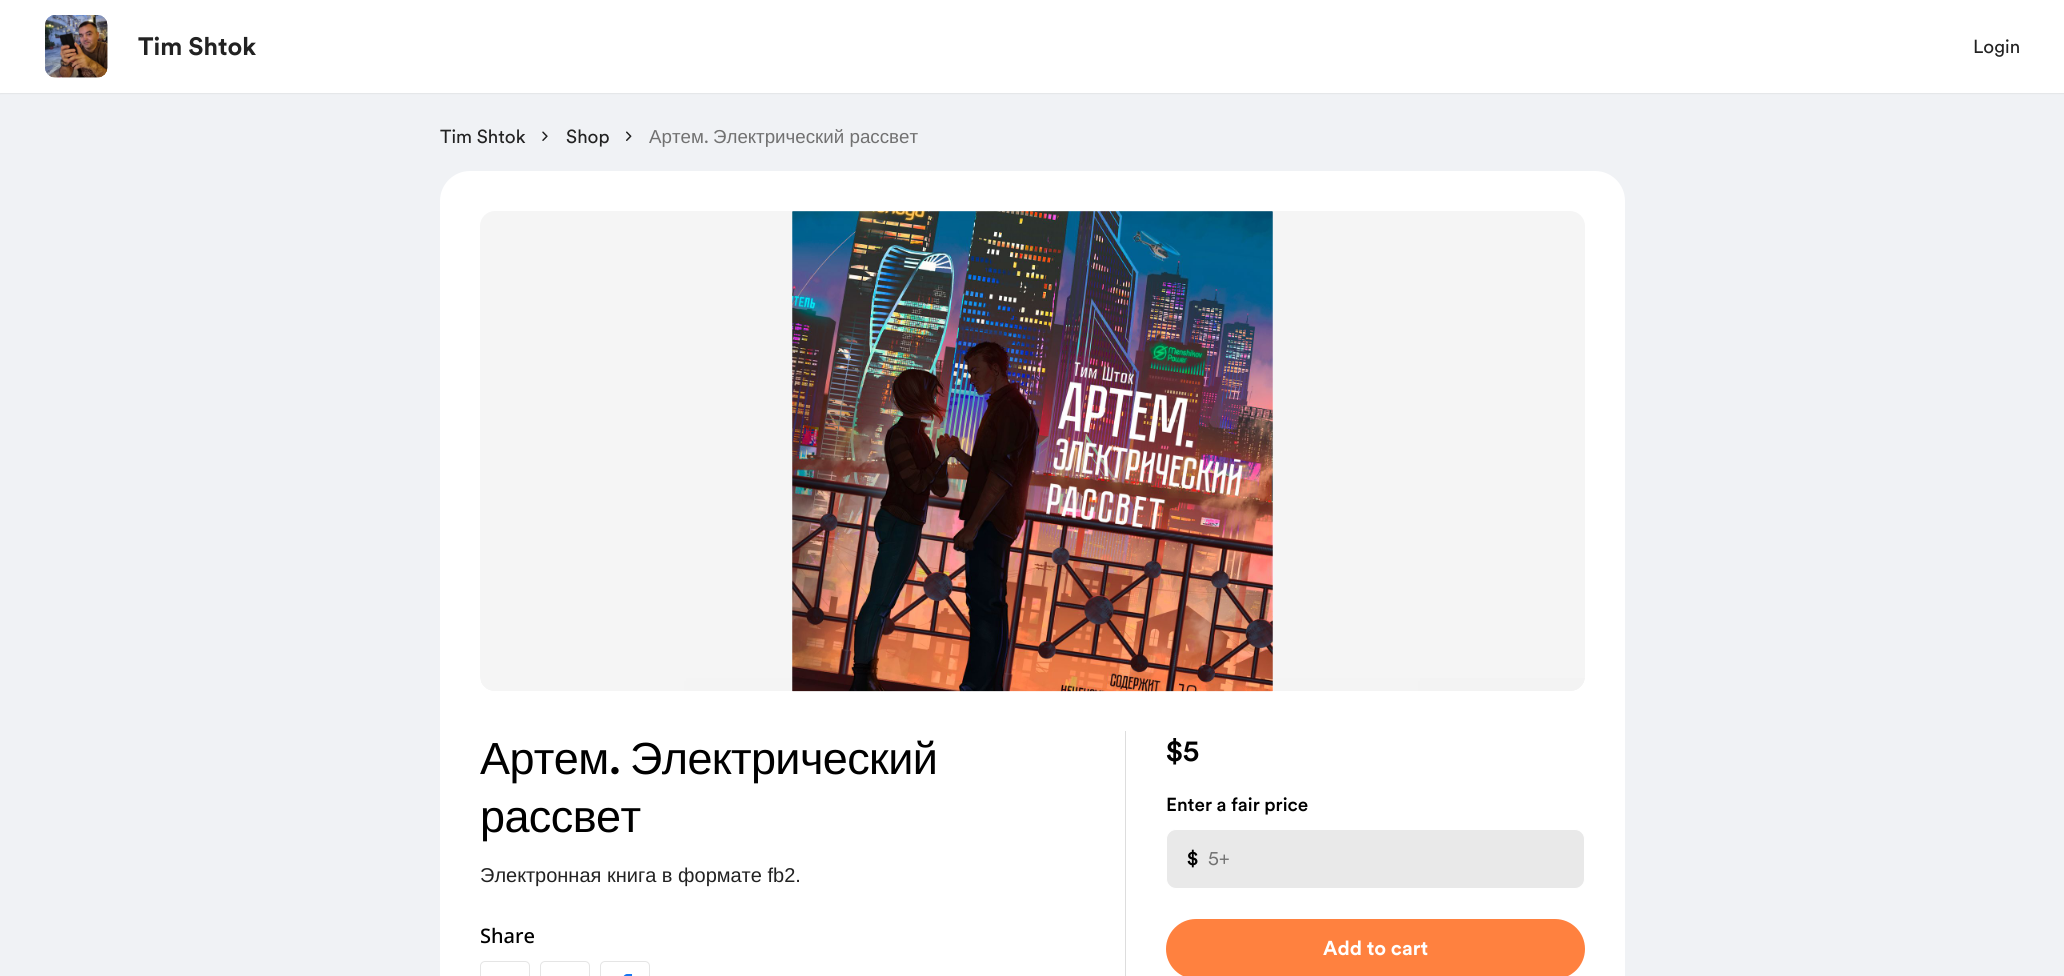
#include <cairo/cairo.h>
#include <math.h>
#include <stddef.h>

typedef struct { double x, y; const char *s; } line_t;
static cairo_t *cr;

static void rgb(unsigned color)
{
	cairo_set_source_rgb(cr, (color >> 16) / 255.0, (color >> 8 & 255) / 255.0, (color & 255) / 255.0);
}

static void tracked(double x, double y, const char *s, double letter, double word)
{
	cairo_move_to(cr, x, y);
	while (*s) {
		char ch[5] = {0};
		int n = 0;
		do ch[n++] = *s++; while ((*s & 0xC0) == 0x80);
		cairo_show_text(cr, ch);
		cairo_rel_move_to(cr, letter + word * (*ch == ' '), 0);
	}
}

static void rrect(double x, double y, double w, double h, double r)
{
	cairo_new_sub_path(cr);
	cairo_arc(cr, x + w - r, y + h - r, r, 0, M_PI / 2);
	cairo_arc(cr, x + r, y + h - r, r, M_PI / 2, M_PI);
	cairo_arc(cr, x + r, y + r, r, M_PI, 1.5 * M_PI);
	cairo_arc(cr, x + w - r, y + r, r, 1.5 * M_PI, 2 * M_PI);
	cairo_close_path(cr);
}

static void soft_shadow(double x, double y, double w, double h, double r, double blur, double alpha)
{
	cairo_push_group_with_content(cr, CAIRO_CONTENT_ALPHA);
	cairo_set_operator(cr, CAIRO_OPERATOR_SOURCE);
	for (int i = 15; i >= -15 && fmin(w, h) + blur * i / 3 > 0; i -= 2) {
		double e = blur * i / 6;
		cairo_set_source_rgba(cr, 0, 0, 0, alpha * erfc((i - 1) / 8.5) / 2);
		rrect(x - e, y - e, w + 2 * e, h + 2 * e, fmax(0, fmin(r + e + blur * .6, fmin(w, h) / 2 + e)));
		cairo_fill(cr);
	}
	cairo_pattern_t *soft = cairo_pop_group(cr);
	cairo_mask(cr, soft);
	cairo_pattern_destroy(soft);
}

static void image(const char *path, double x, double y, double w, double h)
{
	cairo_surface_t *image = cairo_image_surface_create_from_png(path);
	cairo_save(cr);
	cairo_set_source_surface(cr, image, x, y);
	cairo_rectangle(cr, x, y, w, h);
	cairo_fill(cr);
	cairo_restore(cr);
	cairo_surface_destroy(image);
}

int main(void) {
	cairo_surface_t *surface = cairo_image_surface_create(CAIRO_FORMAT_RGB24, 2064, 976);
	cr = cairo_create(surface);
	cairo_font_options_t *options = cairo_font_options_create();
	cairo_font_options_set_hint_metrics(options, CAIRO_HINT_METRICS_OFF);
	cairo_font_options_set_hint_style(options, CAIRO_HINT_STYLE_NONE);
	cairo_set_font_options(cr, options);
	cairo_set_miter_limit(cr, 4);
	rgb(0xffffff);
	cairo_paint(cr);
	rgb(0xf0f2f5);
	cairo_rectangle(cr, 0, 93, 2064, 883);
	cairo_fill(cr);
	cairo_save(cr);
	cairo_set_fill_rule(cr, CAIRO_FILL_RULE_EVEN_ODD);
	cairo_new_path(cr);
	cairo_move_to(cr, 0, 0);
	cairo_line_to(cr, 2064, 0);
	cairo_line_to(cr, 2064, 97);
	cairo_line_to(cr, 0, 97);
	cairo_close_path(cr);
	cairo_move_to(cr, 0, 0);
	cairo_line_to(cr, 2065, 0);
	cairo_line_to(cr, 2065, 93);
	cairo_line_to(cr, 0, 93);
	cairo_close_path(cr);
	cairo_clip(cr);
	rgb(0x000000);
	soft_shadow(0, 1, 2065, 93, 0, 0.5, 0.06);
	cairo_restore(cr);
	image("img/1.png", 45, 15, 63, 63);
	image("img/2.png", 45, 15, 63, 63);
	image("img/3.png", 542, 131, 6, 10);
	image("img/4.png", 626, 131, 6, 10);
	rgb(0xffffff);
	rrect(440, 171, 1185, 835, 30);
	cairo_fill(cr);
	rgb(0xf5f5f5);
	rrect(480, 211, 1105, 480, 15);
	cairo_fill(cr);
	image("img/7.png", 481, 678, 1104, 13);
	image("img/5.png", 792, 211, 481, 481);
	image("img/6.png", 792, 211, 481, 481);
	rrect(480.5, 961.5, 49, 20, 4.5);
	rgb(0xe5e5e5);
	cairo_set_line_width(cr, 1);
	cairo_stroke(cr);
	rrect(540.5, 961.5, 49, 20, 4.5);
	cairo_stroke(cr);
	rrect(600.5, 961.5, 49, 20, 4.5);
	cairo_stroke(cr);
	image("img/8.png", 623, 974, 10, 2);
	rgb(0xdddddd);
	cairo_rectangle(cr, 1125, 731, 1, 245);
	cairo_fill(cr);
	rgb(0xe9e9e9);
	rrect(1166.5, 829.5, 418, 59, 9.5);
	cairo_fill_preserve(cr);
	rgb(0xffffff);
	cairo_stroke(cr);
	rgb(0xff813f);
	rrect(1166, 919, 419, 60, 30);
	cairo_fill(cr);
	cairo_save(cr);
	cairo_rectangle(cr, 138, 29, 118, 35);
	cairo_clip(cr);
	cairo_select_font_face(cr, "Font", CAIRO_FONT_SLANT_NORMAL, CAIRO_FONT_WEIGHT_BOLD);
	cairo_set_font_size(cr, 25);
	rgb(0x222222);
	cairo_move_to(cr, 138, 55);
	cairo_show_text(cr, "Tim Shtok");
	cairo_restore(cr);
	cairo_select_font_face(cr, "Font", CAIRO_FONT_SLANT_NORMAL, CAIRO_FONT_WEIGHT_NORMAL);
	cairo_set_font_size(cr, 18.75);
	rgb(0x222222);
	{
		static const line_t items[] = {
			{1973, 53, "Login"},
			{440, 143, "Tim Shtok"},
			{566, 143, "Shop"},
		};
		for (size_t i = 0; i < sizeof items / sizeof *items; i++) {
			cairo_move_to(cr, items[i].x, items[i].y);
			cairo_show_text(cr, items[i].s);
		}
	}
	cairo_select_font_face(cr, "Liberation Sans", CAIRO_FONT_SLANT_NORMAL, CAIRO_FONT_WEIGHT_NORMAL);
	rgb(0x717171);
	cairo_move_to(cr, 649, 143);
	cairo_show_text(cr, "Артем");
	cairo_select_font_face(cr, "Font", CAIRO_FONT_SLANT_NORMAL, CAIRO_FONT_WEIGHT_NORMAL);
	cairo_move_to(cr, 704, 143);
	cairo_show_text(cr, ".");
	cairo_select_font_face(cr, "Liberation Sans", CAIRO_FONT_SLANT_NORMAL, CAIRO_FONT_WEIGHT_NORMAL);
	cairo_move_to(cr, 713, 143);
	cairo_show_text(cr, "Электрический рассвет");
	cairo_set_font_size(cr, 45);
	rgb(0x000000);
	tracked(480, 774, "Артем", -0.6, 0);
	cairo_select_font_face(cr, "Font Medium", CAIRO_FONT_SLANT_NORMAL, CAIRO_FONT_WEIGHT_NORMAL);
	tracked(609, 774, ".", -0.6, 0);
	cairo_select_font_face(cr, "Liberation Sans", CAIRO_FONT_SLANT_NORMAL, CAIRO_FONT_WEIGHT_NORMAL);
	tracked(630, 774, "Электрический", -0.6, 0);
	tracked(480, 832, "рассвет", -0.6, 0);
	cairo_set_font_size(cr, 20);
	rgb(0x222222);
	cairo_move_to(cr, 480, 882);
	cairo_show_text(cr, "Электронная книга в формате fb2.");
	cairo_select_font_face(cr, "Noto Sans Medium", CAIRO_FONT_SLANT_NORMAL, CAIRO_FONT_WEIGHT_NORMAL);
	rgb(0x000000);
	cairo_move_to(cr, 480, 943);
	cairo_show_text(cr, "Share");
	cairo_select_font_face(cr, "Font Medium", CAIRO_FONT_SLANT_NORMAL, CAIRO_FONT_WEIGHT_NORMAL);
	cairo_set_font_size(cr, 30);
	cairo_move_to(cr, 1166, 761);
	cairo_show_text(cr, "$5");
	cairo_set_font_size(cr, 18.75);
	cairo_move_to(cr, 1166, 811);
	cairo_show_text(cr, "Enter a fair price");
	cairo_set_font_size(cr, 20);
	cairo_move_to(cr, 1187, 865);
	cairo_show_text(cr, "$");
	cairo_select_font_face(cr, "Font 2", CAIRO_FONT_SLANT_NORMAL, CAIRO_FONT_WEIGHT_NORMAL);
	rgb(0x717171);
	cairo_move_to(cr, 1208, 865);
	cairo_show_text(cr, "5+");
	cairo_select_font_face(cr, "Font", CAIRO_FONT_SLANT_NORMAL, CAIRO_FONT_WEIGHT_BOLD);
	rgb(0xffffff);
	cairo_move_to(cr, 1323, 955);
	cairo_show_text(cr, "Add to cart");
	cairo_surface_write_to_png(surface, "page.png");
	cairo_font_options_destroy(options);
	cairo_destroy(cr);
	cairo_surface_destroy(surface);
	return 0;
}
